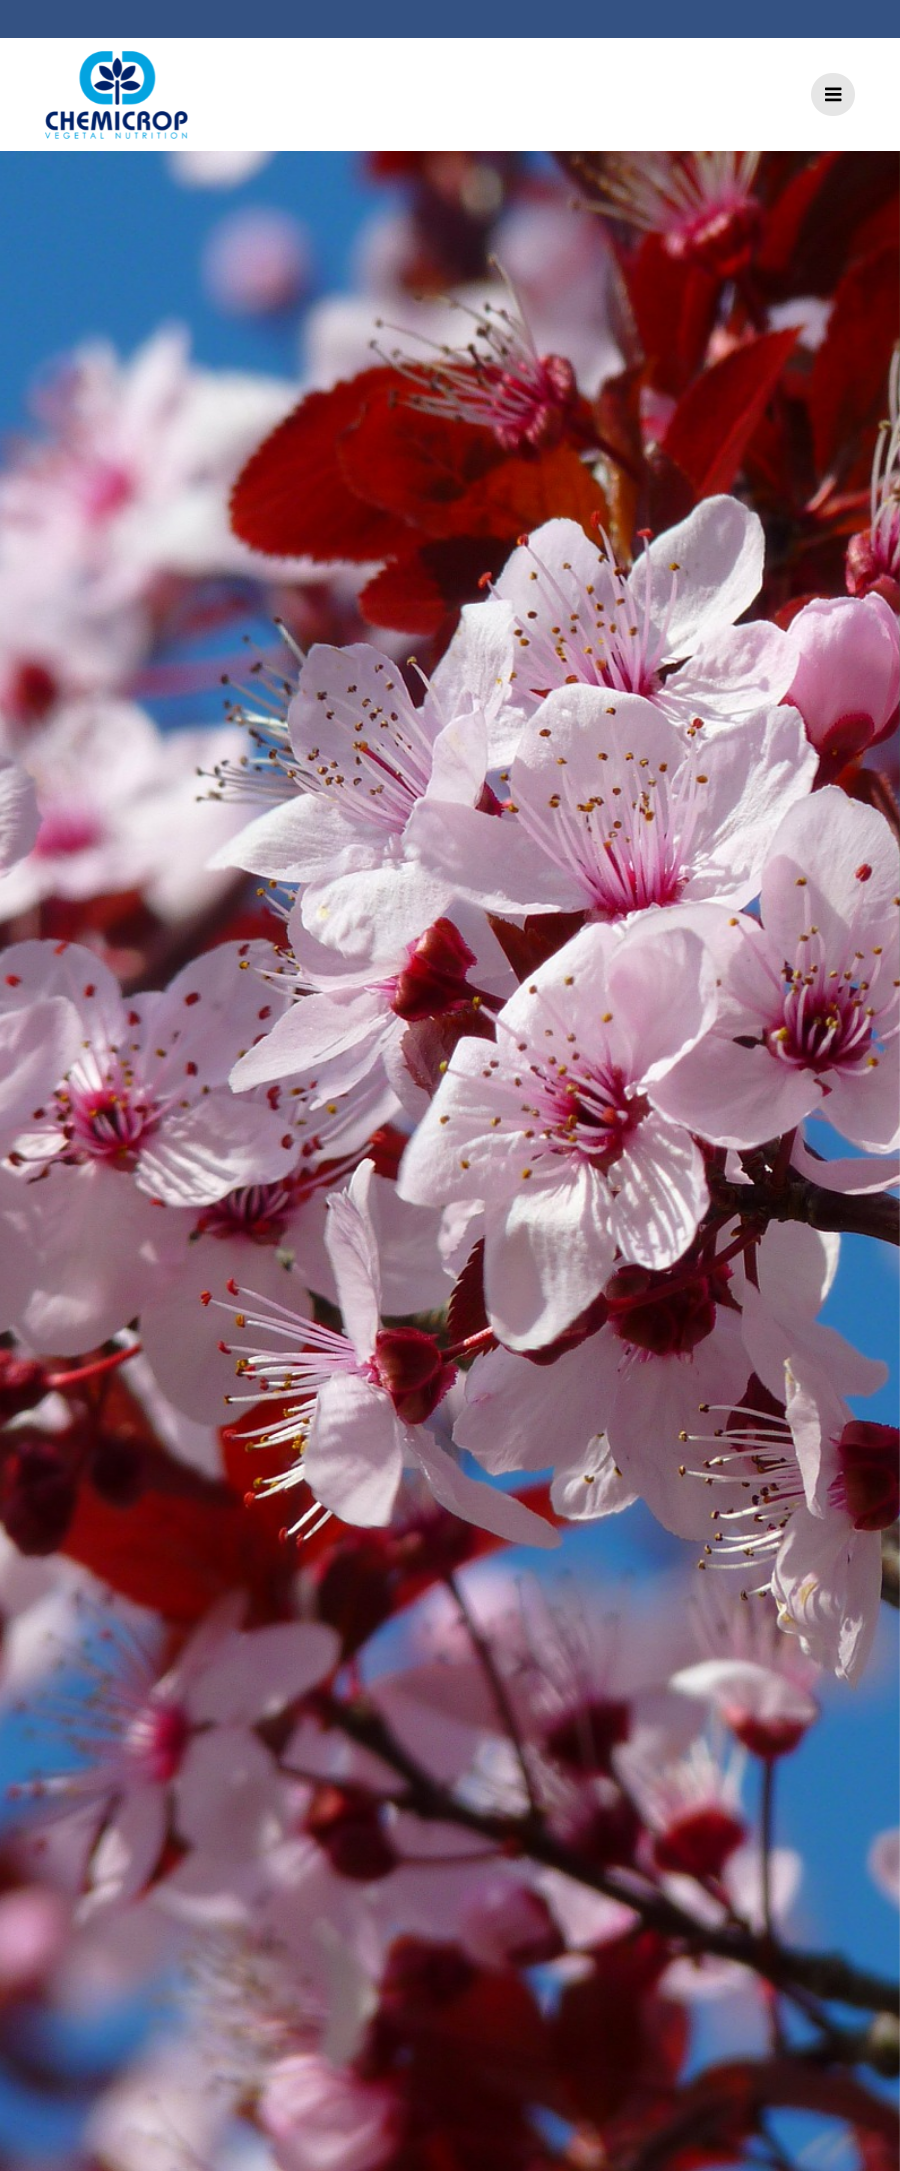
#include <cairo/cairo.h>
#include <math.h>
#include <stddef.h>

static cairo_t *cr;

static void rgb(unsigned color)
{
	cairo_set_source_rgb(cr, (color >> 16) / 255.0, (color >> 8 & 255) / 255.0, (color & 255) / 255.0);
}

static void rrect(double x, double y, double w, double h, double r)
{
	cairo_new_sub_path(cr);
	cairo_arc(cr, x + w - r, y + h - r, r, 0, M_PI / 2);
	cairo_arc(cr, x + r, y + h - r, r, M_PI / 2, M_PI);
	cairo_arc(cr, x + r, y + r, r, M_PI, 1.5 * M_PI);
	cairo_arc(cr, x + w - r, y + r, r, 1.5 * M_PI, 2 * M_PI);
	cairo_close_path(cr);
}

static void image(const char *path, double x, double y, double w, double h)
{
	cairo_surface_t *image = cairo_image_surface_create_from_png(path);
	cairo_save(cr);
	cairo_set_source_surface(cr, image, x, y);
	cairo_rectangle(cr, x, y, w, h);
	cairo_fill(cr);
	cairo_restore(cr);
	cairo_surface_destroy(image);
}

int main(void) {
	cairo_surface_t *surface = cairo_image_surface_create(CAIRO_FORMAT_RGB24, 900, 2171);
	cr = cairo_create(surface);
	cairo_font_options_t *options = cairo_font_options_create();
	cairo_font_options_set_hint_metrics(options, CAIRO_HINT_METRICS_OFF);
	cairo_font_options_set_hint_style(options, CAIRO_HINT_STYLE_NONE);
	cairo_set_font_options(cr, options);
	cairo_set_miter_limit(cr, 4);
	rgb(0xffffff);
	cairo_paint(cr);
	image("img/1.png", 899, 151, 1, 826);
	rgb(0x345283);
	cairo_rectangle(cr, 0, 0, 900, 38);
	cairo_fill(cr);
	image("img/2.png", 45, 51, 143, 88);
	rgb(0xe6e6e6);
	rrect(811, 73, 44, 43, 21.5);
	cairo_fill(cr);
	image("img/3.png", 825, 87, 17, 15);
	image("img/4.png", 0, 151, 900, 2020);
	cairo_surface_write_to_png(surface, "page.png");
	cairo_font_options_destroy(options);
	cairo_destroy(cr);
	cairo_surface_destroy(surface);
	return 0;
}
